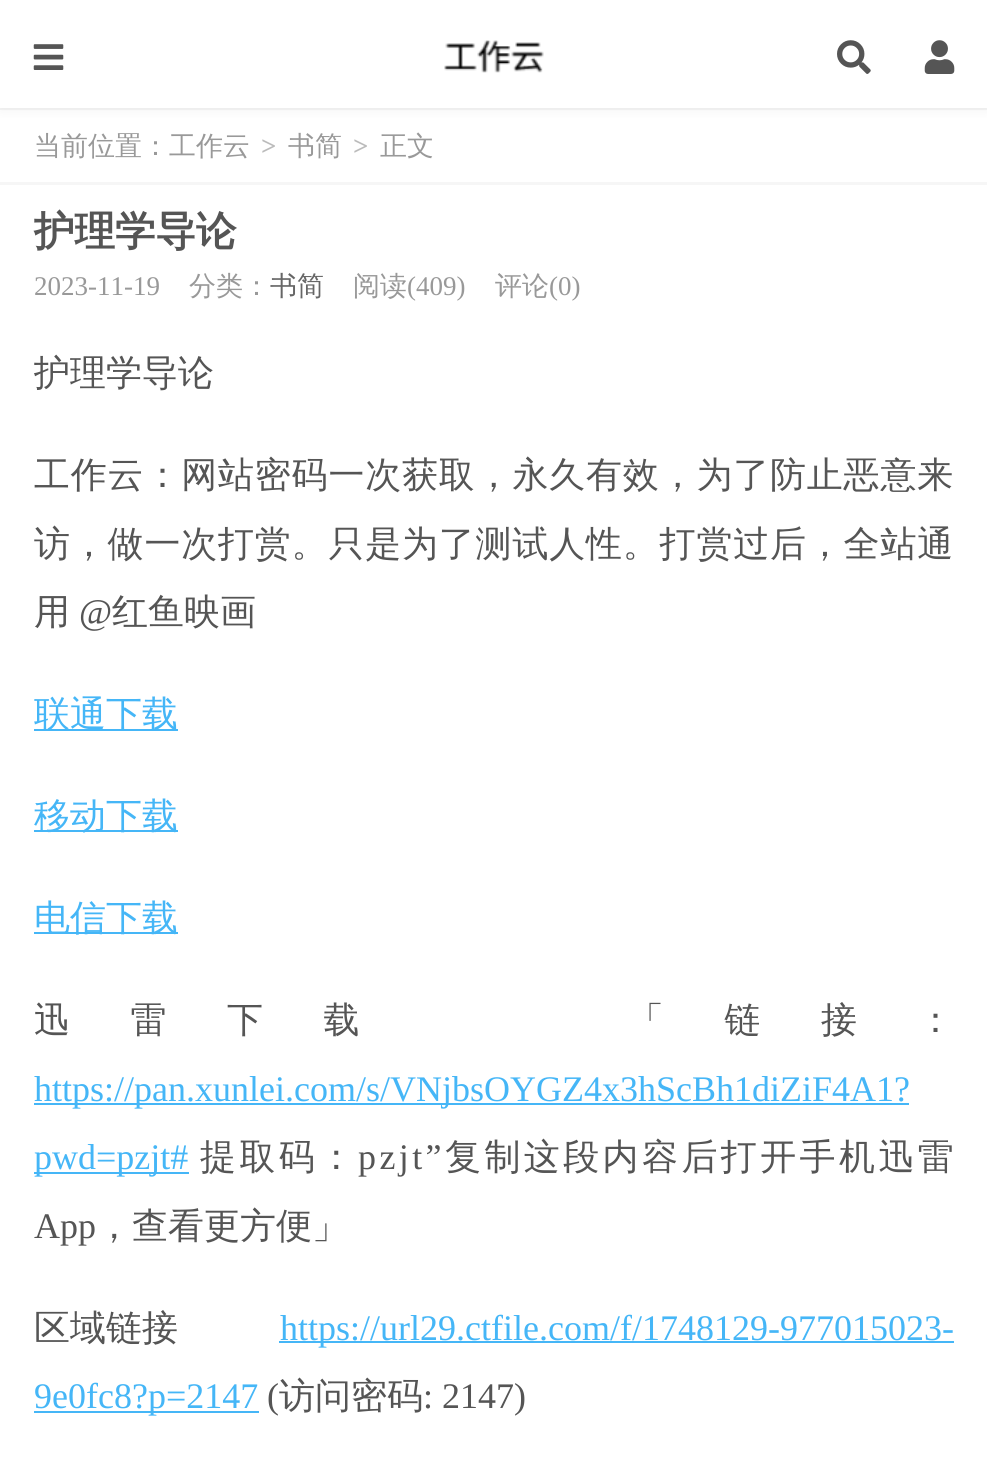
#include <cairo/cairo.h>
#include <math.h>
#include <stddef.h>

typedef struct { double x, y; const char *s; } line_t;
typedef struct { double x, y, w, h; unsigned color; } box_t;
static cairo_t *cr;

static void rgb(unsigned color)
{
	cairo_set_source_rgb(cr, (color >> 16) / 255.0, (color >> 8 & 255) / 255.0, (color & 255) / 255.0);
}

static void tracked(double x, double y, const char *s, double letter, double word)
{
	cairo_move_to(cr, x, y);
	while (*s) {
		char ch[5] = {0};
		int n = 0;
		do ch[n++] = *s++; while ((*s & 0xC0) == 0x80);
		cairo_show_text(cr, ch);
		cairo_rel_move_to(cr, letter + word * (*ch == ' '), 0);
	}
}

static void rrect(double x, double y, double w, double h, double r)
{
	cairo_new_sub_path(cr);
	cairo_arc(cr, x + w - r, y + h - r, r, 0, M_PI / 2);
	cairo_arc(cr, x + r, y + h - r, r, M_PI / 2, M_PI);
	cairo_arc(cr, x + r, y + r, r, M_PI, 1.5 * M_PI);
	cairo_arc(cr, x + w - r, y + r, r, 1.5 * M_PI, 2 * M_PI);
	cairo_close_path(cr);
}

static void soft_shadow(double x, double y, double w, double h, double r, double blur, double alpha)
{
	cairo_push_group_with_content(cr, CAIRO_CONTENT_ALPHA);
	cairo_set_operator(cr, CAIRO_OPERATOR_SOURCE);
	for (int i = 15; i >= -15 && fmin(w, h) + blur * i / 3 > 0; i -= 2) {
		double e = blur * i / 6;
		cairo_set_source_rgba(cr, 0, 0, 0, alpha * erfc((i - 1) / 8.5) / 2);
		rrect(x - e, y - e, w + 2 * e, h + 2 * e, fmax(0, fmin(r + e + blur * .6, fmin(w, h) / 2 + e)));
		cairo_fill(cr);
	}
	cairo_pattern_t *soft = cairo_pop_group(cr);
	cairo_mask(cr, soft);
	cairo_pattern_destroy(soft);
}

static void image(const char *path, double x, double y, double w, double h)
{
	cairo_surface_t *image = cairo_image_surface_create_from_png(path);
	cairo_save(cr);
	cairo_set_source_surface(cr, image, x, y);
	cairo_rectangle(cr, x, y, w, h);
	cairo_fill(cr);
	cairo_restore(cr);
	cairo_surface_destroy(image);
}

int main(void) {
	cairo_surface_t *surface = cairo_image_surface_create(CAIRO_FORMAT_RGB24, 987, 1458);
	cr = cairo_create(surface);
	cairo_font_options_t *options = cairo_font_options_create();
	cairo_font_options_set_hint_metrics(options, CAIRO_HINT_METRICS_OFF);
	cairo_font_options_set_hint_style(options, CAIRO_HINT_STYLE_NONE);
	cairo_set_font_options(cr, options);
	cairo_set_miter_limit(cr, 4);
	rgb(0xf6f6f6);
	cairo_paint(cr);
	rgb(0xffffff);
	cairo_rectangle(cr, 0, 110, 987, 72);
	cairo_fill(cr);
	rgb(0x000000);
	soft_shadow(0, 2, 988, 108, 0, 5.5, 0.05);
	rgb(0xffffff);
	cairo_rectangle(cr, 0, 0, 987, 108);
	cairo_fill(cr);
	image("img/1.png", 33, 44, 31, 26);
	image("img/2.png", 444, 40, 100, 33);
	image("img/3.png", 837, 40, 34, 34);
	image("img/4.png", 924, 40, 31, 34);
	{
		static const box_t items[] = {
			{0, 185, 987, 1273, 0xffffff},
			{34, 729, 144, 2, 0x45b6f7},
			{34, 830, 144, 2, 0x45b6f7},
			{34, 932, 144, 2, 0x45b6f7},
			{34, 1103, 875, 2, 0x45b6f7},
			{34, 1172, 155, 2, 0x45b6f7},
			{279, 1341, 675, 2, 0x45b6f7},
			{34, 1411, 225, 2, 0x45b6f7},
		};
		for (size_t i = 0; i < sizeof items / sizeof *items; i++) {
			rgb(items[i].color);
			cairo_rectangle(cr, items[i].x, items[i].y, items[i].w, items[i].h);
			cairo_fill(cr);
		}
	}
	cairo_select_font_face(cr, "WenQuanYi Zen Hei Medium", CAIRO_FONT_SLANT_NORMAL, CAIRO_FONT_WEIGHT_NORMAL);
	cairo_set_font_size(cr, 27);
	rgb(0x999999);
	cairo_move_to(cr, 34, 155);
	cairo_show_text(cr, "当前位置：工作云");
	cairo_select_font_face(cr, "Liberation Serif", CAIRO_FONT_SLANT_NORMAL, CAIRO_FONT_WEIGHT_BOLD);
	rgb(0xbbbbbb);
	cairo_move_to(cr, 261, 155);
	cairo_show_text(cr, ">");
	cairo_select_font_face(cr, "WenQuanYi Zen Hei Medium", CAIRO_FONT_SLANT_NORMAL, CAIRO_FONT_WEIGHT_NORMAL);
	rgb(0x999999);
	cairo_move_to(cr, 288, 155);
	cairo_show_text(cr, "书简");
	cairo_select_font_face(cr, "Liberation Serif", CAIRO_FONT_SLANT_NORMAL, CAIRO_FONT_WEIGHT_BOLD);
	rgb(0xbbbbbb);
	cairo_move_to(cr, 353, 155);
	cairo_show_text(cr, ">");
	cairo_select_font_face(cr, "WenQuanYi Zen Hei Medium", CAIRO_FONT_SLANT_NORMAL, CAIRO_FONT_WEIGHT_NORMAL);
	rgb(0x999999);
	cairo_move_to(cr, 380, 155);
	cairo_show_text(cr, "正文");
	cairo_select_font_face(cr, "WenQuanYi Zen Hei", CAIRO_FONT_SLANT_NORMAL, CAIRO_FONT_WEIGHT_BOLD);
	cairo_set_font_size(cr, 40.5);
	rgb(0x555555);
	cairo_move_to(cr, 34, 245);
	cairo_show_text(cr, "护理学导论");
	cairo_select_font_face(cr, "Liberation Serif", CAIRO_FONT_SLANT_NORMAL, CAIRO_FONT_WEIGHT_NORMAL);
	cairo_set_font_size(cr, 27);
	rgb(0x999999);
	cairo_move_to(cr, 34, 295);
	cairo_show_text(cr, "2023-11-19");
	cairo_select_font_face(cr, "WenQuanYi Zen Hei Medium", CAIRO_FONT_SLANT_NORMAL, CAIRO_FONT_WEIGHT_NORMAL);
	cairo_move_to(cr, 189, 295);
	cairo_show_text(cr, "分类：");
	rgb(0x666666);
	cairo_move_to(cr, 270, 295);
	cairo_show_text(cr, "书简");
	rgb(0x999999);
	cairo_move_to(cr, 353, 295);
	cairo_show_text(cr, "阅读");
	cairo_select_font_face(cr, "Liberation Serif", CAIRO_FONT_SLANT_NORMAL, CAIRO_FONT_WEIGHT_NORMAL);
	cairo_move_to(cr, 407, 295);
	cairo_show_text(cr, "(409)");
	cairo_select_font_face(cr, "WenQuanYi Zen Hei Medium", CAIRO_FONT_SLANT_NORMAL, CAIRO_FONT_WEIGHT_NORMAL);
	cairo_move_to(cr, 495, 295);
	cairo_show_text(cr, "评论");
	cairo_select_font_face(cr, "Liberation Serif", CAIRO_FONT_SLANT_NORMAL, CAIRO_FONT_WEIGHT_NORMAL);
	cairo_move_to(cr, 549, 295);
	cairo_show_text(cr, "(0)");
	cairo_select_font_face(cr, "WenQuanYi Zen Hei Medium", CAIRO_FONT_SLANT_NORMAL, CAIRO_FONT_WEIGHT_NORMAL);
	cairo_set_font_size(cr, 36);
	rgb(0x555555);
	cairo_move_to(cr, 34, 385);
	cairo_show_text(cr, "护理学导论");
	tracked(34, 487, "工作云：网站密码一次获取，永久有效，为了防止恶意来", 0.8, 0);
	tracked(34, 556, "访，做一次打赏。只是为了测试人性。打赏过后，全站通", 0.8, 0);
	cairo_move_to(cr, 34, 624);
	cairo_show_text(cr, "用");
	cairo_select_font_face(cr, "Liberation Serif", CAIRO_FONT_SLANT_NORMAL, CAIRO_FONT_WEIGHT_NORMAL);
	cairo_move_to(cr, 79, 624);
	cairo_show_text(cr, "@");
	cairo_select_font_face(cr, "WenQuanYi Zen Hei Medium", CAIRO_FONT_SLANT_NORMAL, CAIRO_FONT_WEIGHT_NORMAL);
	cairo_move_to(cr, 112, 624);
	cairo_show_text(cr, "红鱼映画");
	rgb(0x45b6f7);
	{
		static const line_t items[] = {
			{34, 726, "联通下载"},
			{34, 828, "移动下载"},
			{34, 930, "电信下载"},
		};
		for (size_t i = 0; i < sizeof items / sizeof *items; i++) {
			cairo_move_to(cr, items[i].x, items[i].y);
			cairo_show_text(cr, items[i].s);
		}
	}
	rgb(0x555555);
	tracked(34, 1032, "迅雷下载", 60.5, 0);
	tracked(628, 1032, "「链接：", 60.5, 0);
	cairo_select_font_face(cr, "Liberation Serif", CAIRO_FONT_SLANT_NORMAL, CAIRO_FONT_WEIGHT_NORMAL);
	rgb(0x45b6f7);
	cairo_move_to(cr, 34, 1101);
	cairo_show_text(cr, "https://pan.xunlei.com/s/VNjbsOYGZ4x3hScBh1diZiF4A1?");
	cairo_move_to(cr, 34, 1169);
	cairo_show_text(cr, "pwd=pzjt#");
	cairo_select_font_face(cr, "WenQuanYi Zen Hei Medium", CAIRO_FONT_SLANT_NORMAL, CAIRO_FONT_WEIGHT_NORMAL);
	rgb(0x555555);
	tracked(200, 1169, "提取码：", 3.4, 0);
	cairo_select_font_face(cr, "Liberation Serif", CAIRO_FONT_SLANT_NORMAL, CAIRO_FONT_WEIGHT_NORMAL);
	tracked(358, 1169, "pzjt”", 3.4, 0);
	cairo_select_font_face(cr, "WenQuanYi Zen Hei Medium", CAIRO_FONT_SLANT_NORMAL, CAIRO_FONT_WEIGHT_NORMAL);
	tracked(445, 1169, "复制这段内容后打开手机迅雷", 3.4, 0);
	cairo_select_font_face(cr, "Liberation Serif", CAIRO_FONT_SLANT_NORMAL, CAIRO_FONT_WEIGHT_NORMAL);
	cairo_move_to(cr, 34, 1238);
	cairo_show_text(cr, "App");
	cairo_select_font_face(cr, "WenQuanYi Zen Hei Medium", CAIRO_FONT_SLANT_NORMAL, CAIRO_FONT_WEIGHT_NORMAL);
	cairo_move_to(cr, 96, 1238);
	cairo_show_text(cr, "，查看更方便」");
	cairo_move_to(cr, 34, 1340);
	cairo_show_text(cr, "区域链接");
	cairo_select_font_face(cr, "Liberation Serif", CAIRO_FONT_SLANT_NORMAL, CAIRO_FONT_WEIGHT_NORMAL);
	rgb(0x45b6f7);
	cairo_move_to(cr, 280, 1340);
	cairo_show_text(cr, "https://url29.ctfile.com/f/1748129-977015023-");
	cairo_move_to(cr, 34, 1408);
	cairo_show_text(cr, "9e0fc8?p=2147");
	rgb(0x555555);
	cairo_move_to(cr, 267, 1408);
	cairo_show_text(cr, "(");
	cairo_select_font_face(cr, "WenQuanYi Zen Hei Medium", CAIRO_FONT_SLANT_NORMAL, CAIRO_FONT_WEIGHT_NORMAL);
	cairo_move_to(cr, 279, 1408);
	cairo_show_text(cr, "访问密码");
	cairo_select_font_face(cr, "Liberation Serif", CAIRO_FONT_SLANT_NORMAL, CAIRO_FONT_WEIGHT_NORMAL);
	cairo_move_to(cr, 423, 1408);
	cairo_show_text(cr, ": 2147)");
	cairo_surface_write_to_png(surface, "page.png");
	cairo_font_options_destroy(options);
	cairo_destroy(cr);
	cairo_surface_destroy(surface);
	return 0;
}
